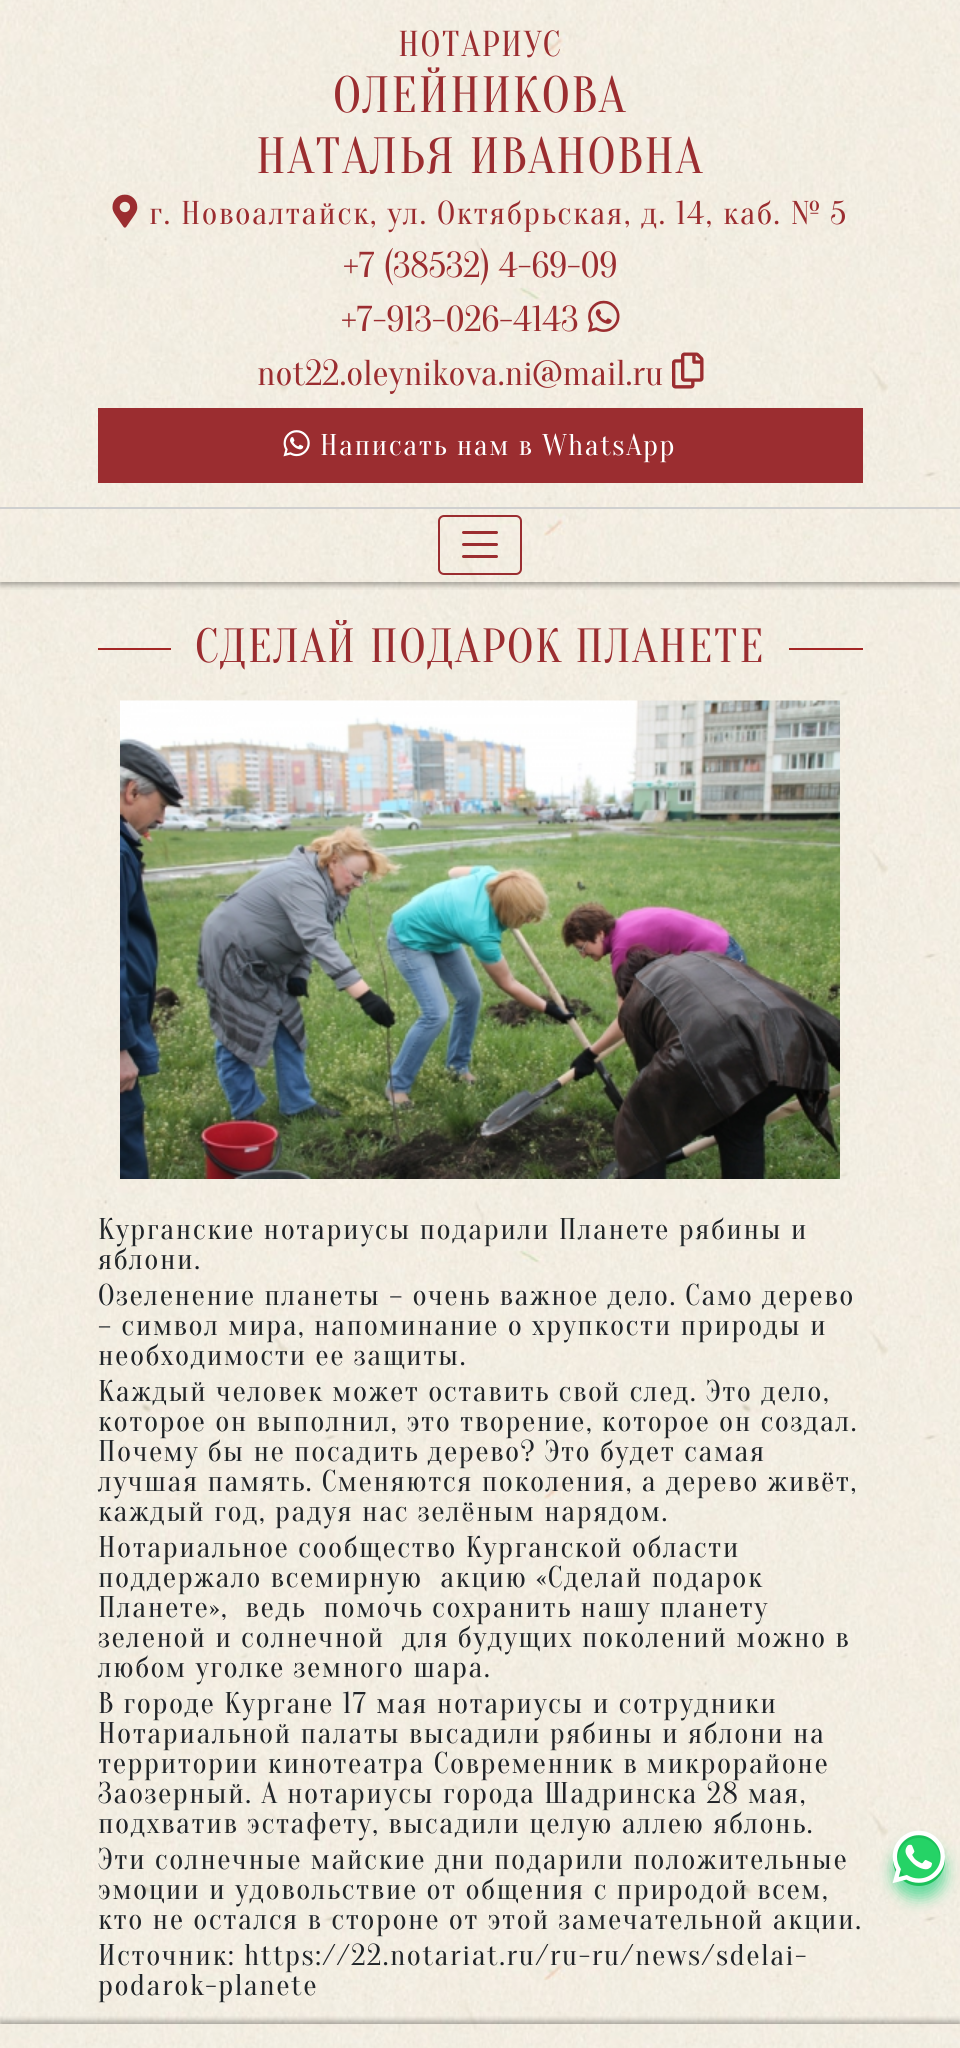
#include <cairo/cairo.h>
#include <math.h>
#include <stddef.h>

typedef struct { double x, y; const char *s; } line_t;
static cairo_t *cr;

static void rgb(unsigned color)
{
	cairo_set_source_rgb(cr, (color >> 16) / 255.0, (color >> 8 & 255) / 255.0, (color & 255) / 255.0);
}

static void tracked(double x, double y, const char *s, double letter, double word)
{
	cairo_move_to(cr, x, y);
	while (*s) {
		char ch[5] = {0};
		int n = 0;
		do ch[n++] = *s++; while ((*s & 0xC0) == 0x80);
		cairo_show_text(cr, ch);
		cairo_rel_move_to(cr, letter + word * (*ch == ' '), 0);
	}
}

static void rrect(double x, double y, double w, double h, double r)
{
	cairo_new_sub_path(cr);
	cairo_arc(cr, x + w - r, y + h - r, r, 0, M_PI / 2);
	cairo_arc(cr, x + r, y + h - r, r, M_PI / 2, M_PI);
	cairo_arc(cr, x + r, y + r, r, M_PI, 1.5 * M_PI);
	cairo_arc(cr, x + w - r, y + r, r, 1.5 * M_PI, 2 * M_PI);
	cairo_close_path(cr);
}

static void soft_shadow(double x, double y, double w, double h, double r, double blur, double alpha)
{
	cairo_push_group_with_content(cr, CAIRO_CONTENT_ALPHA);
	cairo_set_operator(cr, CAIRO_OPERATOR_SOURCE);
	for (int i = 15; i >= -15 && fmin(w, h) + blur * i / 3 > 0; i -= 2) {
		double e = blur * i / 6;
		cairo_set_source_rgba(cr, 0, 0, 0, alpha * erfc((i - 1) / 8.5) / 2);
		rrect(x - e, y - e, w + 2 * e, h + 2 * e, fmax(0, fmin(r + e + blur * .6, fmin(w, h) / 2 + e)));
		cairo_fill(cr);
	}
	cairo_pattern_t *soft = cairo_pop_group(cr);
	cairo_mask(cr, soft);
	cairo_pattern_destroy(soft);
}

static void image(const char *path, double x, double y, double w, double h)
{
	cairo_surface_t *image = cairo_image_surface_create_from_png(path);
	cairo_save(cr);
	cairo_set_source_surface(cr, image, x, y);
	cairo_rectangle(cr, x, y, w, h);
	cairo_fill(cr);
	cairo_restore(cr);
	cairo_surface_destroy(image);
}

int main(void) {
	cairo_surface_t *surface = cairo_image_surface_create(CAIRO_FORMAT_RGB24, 960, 2048);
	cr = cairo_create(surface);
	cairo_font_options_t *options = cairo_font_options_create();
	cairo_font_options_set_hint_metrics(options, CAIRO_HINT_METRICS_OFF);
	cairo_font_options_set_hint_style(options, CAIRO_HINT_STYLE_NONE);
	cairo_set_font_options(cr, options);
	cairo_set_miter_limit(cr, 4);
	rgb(0xffffff);
	cairo_paint(cr);
	image("img/1.png", 0, 0, 960, 2048);
	cairo_save(cr);
	cairo_rectangle(cr, 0, 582, 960, 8);
	cairo_clip(cr);
	rgb(0x000000);
	soft_shadow(0, 3, 960, 582, 0, 3, 0.33);
	cairo_restore(cr);
	image("img/2.png", 112, 194, 26, 34);
	image("img/3.png", 588, 300, 32, 33);
	image("img/4.png", 672, 352, 32, 37);
	rgb(0x9b2d30);
	cairo_rectangle(cr, 98, 408, 765, 75);
	cairo_fill(cr);
	image("img/5.png", 283, 430, 27, 27);
	rgb(0x07ce70);
	soft_shadow(893, 1845, 52, 53, 26, 7.5, 0.6);
	rgb(0x25d366);
	rrect(895.5, 1835.5, 47, 48, 23.5);
	cairo_fill_preserve(cr);
	rgb(0x1cc15a);
	cairo_set_line_width(cr, 5);
	cairo_stroke(cr);
	image("img/6.png", 892, 1830, 53, 54);
	rgb(0xcfcfcf);
	cairo_rectangle(cr, 0, 507, 960, 2);
	cairo_fill(cr);
	rrect(439, 516, 82, 58, 5);
	rgb(0x9b2d30);
	cairo_set_line_width(cr, 2);
	cairo_stroke(cr);
	cairo_new_path(cr);
	cairo_move_to(cr, 463.5, 532.5);
	cairo_line_to(cr, 496.5, 532.5);
	cairo_move_to(cr, 463.5, 544.5);
	cairo_line_to(cr, 496.5, 544.5);
	cairo_move_to(cr, 463.5, 556.5);
	cairo_line_to(cr, 496.5, 556.5);
	cairo_set_line_width(cr, 3);
	cairo_set_line_cap(cr, CAIRO_LINE_CAP_ROUND);
	cairo_stroke(cr);
	rgb(0xa42625);
	cairo_rectangle(cr, 98, 648, 73, 2);
	cairo_fill(cr);
	cairo_rectangle(cr, 789, 648, 74, 2);
	cairo_fill(cr);
	image("img/7.png", 120, 700, 720, 479);
	cairo_save(cr);
	cairo_rectangle(cr, 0, 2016, 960, 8);
	cairo_clip(cr);
	rgb(0x000000);
	soft_shadow(0, 2021, 960, 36, 0, 3, 0.33);
	cairo_restore(cr);
	cairo_select_font_face(cr, "Oranienbaum", CAIRO_FONT_SLANT_NORMAL, CAIRO_FONT_WEIGHT_NORMAL);
	cairo_set_font_size(cr, 36);
	rgb(0x9b2d30);
	tracked(398, 56, "НОТАРИУС", 1.5, 0);
	cairo_set_font_size(cr, 51);
	tracked(333, 112, "ОЛЕЙНИКОВА", 1.5, 0);
	tracked(256, 173, "НАТАЛЬЯ ИВАНОВНА", 1.5, 0);
	cairo_set_font_size(cr, 33);
	tracked(149, 224, "г. Новоалтайск, ул. Октябрьская, д. 14, каб. № 5", 1.5, 0);
	cairo_set_font_size(cr, 36);
	{
		static const line_t items[] = {
			{343, 277, "+7 (38532) 4-69-09"},
			{341, 331, "+7-913-026-4143"},
			{257, 385, "not22.oleynikova.ni@mail.ru"},
		};
		for (size_t i = 0; i < sizeof items / sizeof *items; i++) {
			cairo_move_to(cr, items[i].x, items[i].y);
			cairo_show_text(cr, items[i].s);
		}
	}
	cairo_set_font_size(cr, 30);
	rgb(0xffffff);
	tracked(320, 455, "Написать нам в WhatsApp", 1.5, 0);
	cairo_set_font_size(cr, 48);
	rgb(0x9b2d30);
	tracked(195, 662, "СДЕЛАЙ ПОДАРОК ПЛАНЕТЕ", 1.5, 0);
	cairo_set_font_size(cr, 30);
	rgb(0x212529);
	{
		static const line_t items[] = {
			{98, 1239, "Курганские нотариусы подарили Планете рябины и"},
			{98, 1269, "яблони."},
			{98, 1305, "Озеленение планеты – очень важное дело. Само дерево"},
			{98, 1335, "– символ мира, напоминание о хрупкости природы и"},
			{98, 1365, "необходимости ее защиты."},
			{98, 1401, "Каждый человек может оставить свой след. Это дело,"},
			{98, 1431, "которое он выполнил, это творение, которое он создал."},
			{98, 1461, "Почему бы не посадить дерево? Это будет самая"},
			{98, 1491, "лучшая память. Сменяются поколения, а дерево живёт,"},
			{98, 1521, "каждый год, радуя нас зелёным нарядом."},
			{98, 1557, "Нотариальное сообщество Курганской области"},
			{98, 1587, "поддержало всемирную  акцию «Сделай подарок"},
			{98, 1617, "Планете»,  ведь  помочь сохранить нашу планету"},
			{98, 1647, "зеленой и солнечной  для будущих поколений можно в"},
			{98, 1677, "любом уголке земного шара."},
			{98, 1713, "В городе Кургане 17 мая нотариусы и сотрудники"},
			{98, 1743, "Нотариальной палаты высадили рябины и яблони на"},
			{98, 1773, "территории кинотеатра Современник в микрорайоне"},
			{98, 1803, "Заозерный. А нотариусы города Шадринска 28 мая,"},
			{98, 1833, "подхватив эстафету, высадили целую аллею яблонь."},
			{98, 1869, "Эти солнечные майские дни подарили положительные"},
			{98, 1899, "эмоции и удовольствие от общения с природой всем,"},
			{98, 1929, "кто не остался в стороне от этой замечательной акции."},
			{98, 1965, "Источник: https://22.notariat.ru/ru-ru/news/sdelai-"},
			{98, 1995, "podarok-planete"},
		};
		for (size_t i = 0; i < sizeof items / sizeof *items; i++) {
			tracked(items[i].x, items[i].y, items[i].s, 1.5, 0);
		}
	}
	cairo_surface_write_to_png(surface, "page.png");
	cairo_font_options_destroy(options);
	cairo_destroy(cr);
	cairo_surface_destroy(surface);
	return 0;
}
